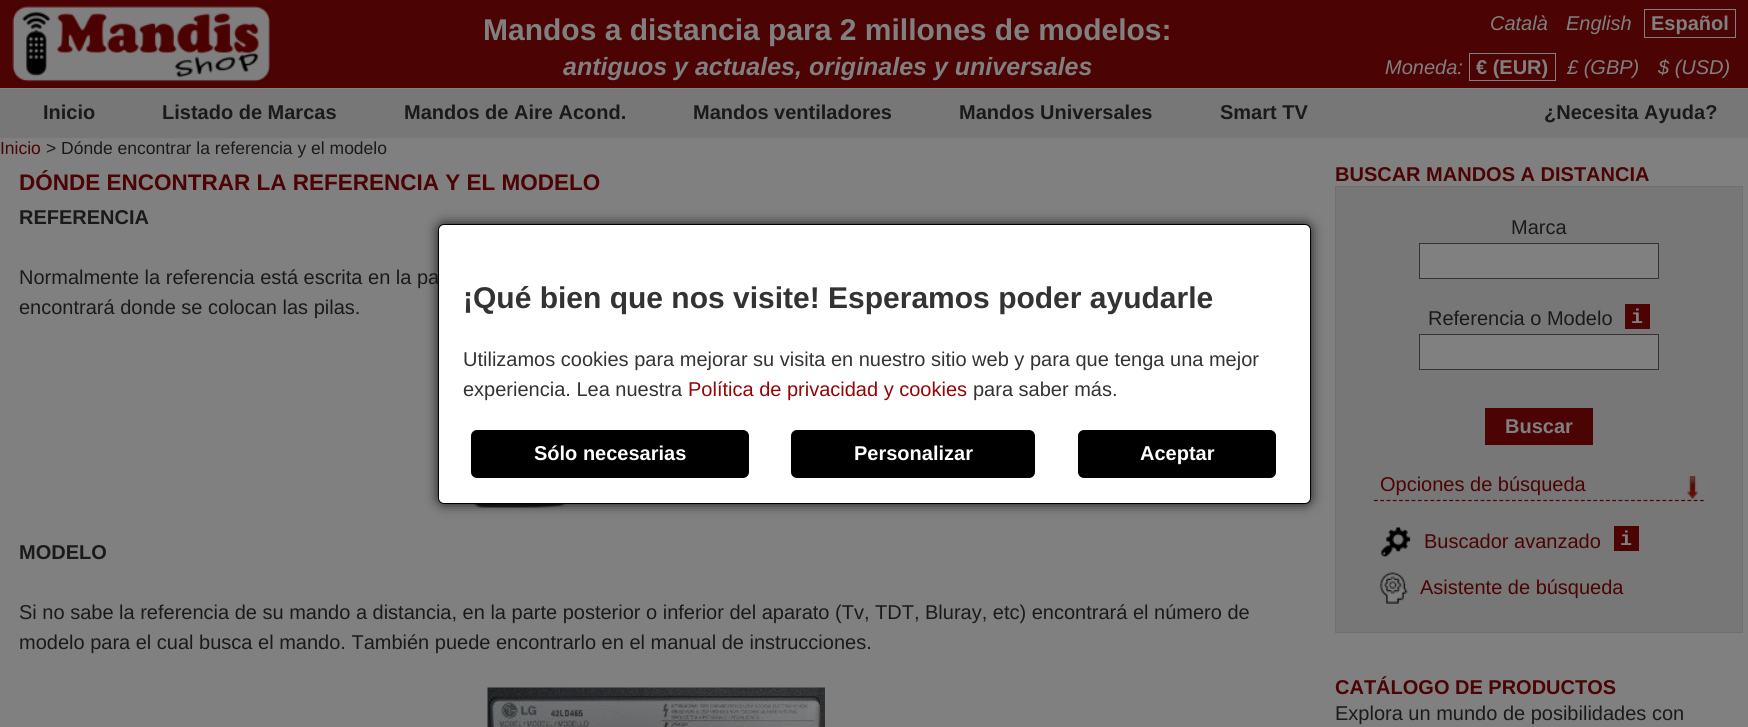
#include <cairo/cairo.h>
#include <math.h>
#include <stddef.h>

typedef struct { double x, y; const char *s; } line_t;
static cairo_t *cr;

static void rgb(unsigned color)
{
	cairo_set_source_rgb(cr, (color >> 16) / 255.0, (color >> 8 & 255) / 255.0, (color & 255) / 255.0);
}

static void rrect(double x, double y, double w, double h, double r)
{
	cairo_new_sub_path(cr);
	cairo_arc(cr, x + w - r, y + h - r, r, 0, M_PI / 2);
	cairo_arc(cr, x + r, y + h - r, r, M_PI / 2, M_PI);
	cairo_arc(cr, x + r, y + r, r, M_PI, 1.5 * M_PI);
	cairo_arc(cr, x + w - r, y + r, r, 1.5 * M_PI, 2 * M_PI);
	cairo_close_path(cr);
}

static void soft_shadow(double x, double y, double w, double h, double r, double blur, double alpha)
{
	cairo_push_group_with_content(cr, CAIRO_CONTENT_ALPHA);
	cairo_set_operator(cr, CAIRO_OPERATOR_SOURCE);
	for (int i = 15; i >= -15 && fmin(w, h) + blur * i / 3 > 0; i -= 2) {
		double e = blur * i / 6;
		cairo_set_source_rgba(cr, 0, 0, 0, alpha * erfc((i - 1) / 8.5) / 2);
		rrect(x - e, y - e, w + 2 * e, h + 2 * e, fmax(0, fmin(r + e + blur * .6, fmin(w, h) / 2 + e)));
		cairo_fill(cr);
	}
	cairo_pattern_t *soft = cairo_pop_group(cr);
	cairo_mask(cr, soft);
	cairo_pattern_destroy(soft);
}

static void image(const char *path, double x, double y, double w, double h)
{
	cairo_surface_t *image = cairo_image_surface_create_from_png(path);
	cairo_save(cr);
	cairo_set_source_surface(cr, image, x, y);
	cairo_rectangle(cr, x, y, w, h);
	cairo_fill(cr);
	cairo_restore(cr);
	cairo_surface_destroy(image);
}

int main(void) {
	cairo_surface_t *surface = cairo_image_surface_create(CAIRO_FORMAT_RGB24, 1748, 727);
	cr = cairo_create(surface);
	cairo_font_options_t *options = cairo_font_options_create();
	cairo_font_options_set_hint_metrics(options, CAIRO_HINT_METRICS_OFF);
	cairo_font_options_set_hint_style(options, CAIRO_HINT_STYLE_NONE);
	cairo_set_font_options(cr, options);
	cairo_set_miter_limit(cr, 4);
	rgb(0x808080);
	cairo_paint(cr);
	rgb(0x4b0303);
	cairo_rectangle(cr, 0, 0, 1748, 88);
	cairo_fill(cr);
	image("img/1.png", 12, 6, 258, 76);
	cairo_rectangle(cr, 1644.5, 9.5, 91, 28);
	rgb(0x808080);
	cairo_set_line_width(cr, 1);
	cairo_stroke(cr);
	cairo_rectangle(cr, 1469.5, 53.5, 86, 27);
	cairo_stroke(cr);
	rgb(0x777777);
	cairo_rectangle(cr, 0, 89, 1748, 49);
	cairo_fill(cr);
	image("img/2.png", 468, 504, 376, 4);
	image("img/3.png", 487, 687, 338, 40);
	cairo_rectangle(cr, 1335.5, 186.5, 407, 446);
	cairo_fill_preserve(cr);
	rgb(0x6f6f6f);
	cairo_stroke(cr);
	rgb(0x808080);
	cairo_rectangle(cr, 1419.5, 243.5, 239, 35);
	cairo_fill_preserve(cr);
	rgb(0x333333);
	cairo_stroke(cr);
	rgb(0x4b0303);
	cairo_rectangle(cr, 1625, 304, 25, 25);
	cairo_fill(cr);
	rgb(0x808080);
	cairo_rectangle(cr, 1419.5, 334.5, 239, 35);
	cairo_fill_preserve(cr);
	rgb(0x333333);
	cairo_stroke(cr);
	rgb(0x4b0303);
	cairo_rectangle(cr, 1485, 408, 108, 37);
	cairo_fill(cr);
	cairo_new_path(cr);
	cairo_move_to(cr, 1374, 500.5);
	cairo_line_to(cr, 1704, 500.5);
	cairo_set_line_width(cr, 1.2);
	cairo_set_dash(cr, (double[]){3.75, 2.52}, 2, 0);
	cairo_stroke(cr);
	image("img/4.png", 1687, 476, 11, 23);
	image("img/5.png", 1381, 527, 30, 30);
	cairo_rectangle(cr, 1614, 526, 25, 25);
	cairo_fill(cr);
	image("img/6.png", 1380, 572, 28, 32);
	rgb(0x000000);
	soft_shadow(438, 224, 873, 280, 6, 6, 0.8);
	cairo_select_font_face(cr, "Liberation Sans", CAIRO_FONT_SLANT_NORMAL, CAIRO_FONT_WEIGHT_BOLD);
	cairo_set_font_size(cr, 30);
	rgb(0x808080);
	cairo_move_to(cr, 483, 40);
	cairo_show_text(cr, "Mandos a distancia para 2 millones de modelos:");
	cairo_select_font_face(cr, "Liberation Sans", CAIRO_FONT_SLANT_ITALIC, CAIRO_FONT_WEIGHT_BOLD);
	cairo_set_font_size(cr, 25);
	cairo_move_to(cr, 563, 75);
	cairo_show_text(cr, "antiguos y actuales, originales y universales");
	cairo_select_font_face(cr, "Liberation Sans", CAIRO_FONT_SLANT_ITALIC, CAIRO_FONT_WEIGHT_NORMAL);
	cairo_set_font_size(cr, 20);
	cairo_move_to(cr, 1490, 30);
	cairo_show_text(cr, "Català");
	cairo_move_to(cr, 1566, 30);
	cairo_show_text(cr, "English");
	cairo_select_font_face(cr, "Liberation Sans", CAIRO_FONT_SLANT_NORMAL, CAIRO_FONT_WEIGHT_BOLD);
	cairo_move_to(cr, 1651, 30);
	cairo_show_text(cr, "Español");
	cairo_select_font_face(cr, "Liberation Sans", CAIRO_FONT_SLANT_ITALIC, CAIRO_FONT_WEIGHT_NORMAL);
	cairo_move_to(cr, 1385, 74);
	cairo_show_text(cr, "Moneda:");
	cairo_select_font_face(cr, "Liberation Sans", CAIRO_FONT_SLANT_NORMAL, CAIRO_FONT_WEIGHT_BOLD);
	cairo_move_to(cr, 1476, 74);
	cairo_show_text(cr, "€ (EUR)");
	cairo_select_font_face(cr, "Liberation Sans", CAIRO_FONT_SLANT_ITALIC, CAIRO_FONT_WEIGHT_NORMAL);
	cairo_move_to(cr, 1567, 74);
	cairo_show_text(cr, "£ (GBP)");
	cairo_move_to(cr, 1658, 74);
	cairo_show_text(cr, "$ (USD)");
	cairo_select_font_face(cr, "Liberation Sans", CAIRO_FONT_SLANT_NORMAL, CAIRO_FONT_WEIGHT_BOLD);
	rgb(0x1a1a1a);
	{
		static const line_t items[] = {
			{43, 119, "Inicio"},
			{162, 119, "Listado de Marcas"},
			{404, 119, "Mandos de Aire Acond."},
			{693, 119, "Mandos ventiladores"},
			{959, 119, "Mandos Universales"},
			{1220, 119, "Smart TV"},
			{1544, 119, "¿Necesita Ayuda?"},
		};
		for (size_t i = 0; i < sizeof items / sizeof *items; i++) {
			cairo_move_to(cr, items[i].x, items[i].y);
			cairo_show_text(cr, items[i].s);
		}
	}
	cairo_select_font_face(cr, "Liberation Sans", CAIRO_FONT_SLANT_NORMAL, CAIRO_FONT_WEIGHT_NORMAL);
	cairo_set_font_size(cr, 17.5);
	rgb(0x4b0303);
	cairo_move_to(cr, 0, 154);
	cairo_show_text(cr, "Inicio");
	rgb(0x1a1a1a);
	cairo_move_to(cr, 46, 154);
	cairo_show_text(cr, "> Dónde encontrar la referencia y el modelo");
	cairo_select_font_face(cr, "Liberation Sans", CAIRO_FONT_SLANT_NORMAL, CAIRO_FONT_WEIGHT_BOLD);
	cairo_set_font_size(cr, 22.5);
	rgb(0x4b0303);
	cairo_move_to(cr, 19, 190);
	cairo_show_text(cr, "DÓNDE ENCONTRAR LA REFERENCIA Y EL MODELO");
	cairo_set_font_size(cr, 20);
	rgb(0x1a1a1a);
	cairo_move_to(cr, 19, 224);
	cairo_show_text(cr, "REFERENCIA");
	cairo_select_font_face(cr, "Liberation Sans", CAIRO_FONT_SLANT_NORMAL, CAIRO_FONT_WEIGHT_NORMAL);
	cairo_move_to(cr, 19, 284);
	cairo_show_text(cr, "Normalmente la referencia está escrita en la pa");
	cairo_move_to(cr, 19, 314);
	cairo_show_text(cr, "encontrará donde se colocan las pilas.");
	cairo_select_font_face(cr, "Liberation Sans", CAIRO_FONT_SLANT_NORMAL, CAIRO_FONT_WEIGHT_BOLD);
	cairo_move_to(cr, 19, 559);
	cairo_show_text(cr, "MODELO");
	cairo_select_font_face(cr, "Liberation Sans", CAIRO_FONT_SLANT_NORMAL, CAIRO_FONT_WEIGHT_NORMAL);
	cairo_move_to(cr, 19, 619);
	cairo_show_text(cr, "Si no sabe la referencia de su mando a distancia, en la parte posterior o inferior del aparato (Tv, TDT, Bluray, etc) encontrará el número de");
	cairo_move_to(cr, 19, 649);
	cairo_show_text(cr, "modelo para el cual busca el mando. También puede encontrarlo en el manual de instrucciones.");
	cairo_select_font_face(cr, "Liberation Sans", CAIRO_FONT_SLANT_NORMAL, CAIRO_FONT_WEIGHT_BOLD);
	rgb(0x4b0303);
	cairo_move_to(cr, 1335, 181);
	cairo_show_text(cr, "BUSCAR MANDOS A DISTANCIA");
	cairo_select_font_face(cr, "Liberation Sans", CAIRO_FONT_SLANT_NORMAL, CAIRO_FONT_WEIGHT_NORMAL);
	rgb(0x1a1a1a);
	cairo_move_to(cr, 1511, 234);
	cairo_show_text(cr, "Marca");
	cairo_move_to(cr, 1428, 325);
	cairo_show_text(cr, "Referencia o Modelo");
	cairo_select_font_face(cr, "Liberation Mono", CAIRO_FONT_SLANT_NORMAL, CAIRO_FONT_WEIGHT_BOLD);
	rgb(0x808080);
	cairo_move_to(cr, 1631, 323);
	cairo_show_text(cr, "i");
	cairo_select_font_face(cr, "Liberation Sans", CAIRO_FONT_SLANT_NORMAL, CAIRO_FONT_WEIGHT_BOLD);
	cairo_move_to(cr, 1505, 433);
	cairo_show_text(cr, "Buscar");
	cairo_select_font_face(cr, "Liberation Sans", CAIRO_FONT_SLANT_NORMAL, CAIRO_FONT_WEIGHT_NORMAL);
	rgb(0x4b0303);
	cairo_move_to(cr, 1380, 491);
	cairo_show_text(cr, "Opciones de búsqueda");
	cairo_move_to(cr, 1424, 548);
	cairo_show_text(cr, "Buscador avanzado");
	cairo_select_font_face(cr, "Liberation Mono", CAIRO_FONT_SLANT_NORMAL, CAIRO_FONT_WEIGHT_BOLD);
	rgb(0x808080);
	cairo_move_to(cr, 1620, 545);
	cairo_show_text(cr, "i");
	cairo_select_font_face(cr, "Liberation Sans", CAIRO_FONT_SLANT_NORMAL, CAIRO_FONT_WEIGHT_NORMAL);
	rgb(0x4b0303);
	cairo_move_to(cr, 1420, 594);
	cairo_show_text(cr, "Asistente de búsqueda");
	rgb(0xffffff);
	rrect(438.5, 224.5, 872, 279, 5.5);
	cairo_fill_preserve(cr);
	rgb(0x000000);
	cairo_set_line_width(cr, 1);
	cairo_set_dash(cr, NULL, 0, 0);
	cairo_stroke(cr);
	cairo_select_font_face(cr, "Liberation Sans", CAIRO_FONT_SLANT_NORMAL, CAIRO_FONT_WEIGHT_BOLD);
	cairo_set_font_size(cr, 30);
	rgb(0x333333);
	cairo_move_to(cr, 463, 308);
	cairo_show_text(cr, "¡Qué bien que nos visite! Esperamos poder ayudarle");
	cairo_select_font_face(cr, "Liberation Sans", CAIRO_FONT_SLANT_NORMAL, CAIRO_FONT_WEIGHT_NORMAL);
	cairo_set_font_size(cr, 20);
	cairo_move_to(cr, 463, 366);
	cairo_show_text(cr, "Utilizamos cookies para mejorar su visita en nuestro sitio web y para que tenga una mejor");
	cairo_move_to(cr, 463, 396);
	cairo_show_text(cr, "experiencia. Lea nuestra");
	rgb(0x950505);
	cairo_move_to(cr, 688, 396);
	cairo_show_text(cr, "Política de privacidad y cookies");
	rgb(0x333333);
	cairo_move_to(cr, 973, 396);
	cairo_show_text(cr, "para saber más.");
	rgb(0x000000);
	rrect(471, 430, 278, 48, 6);
	cairo_fill(cr);
	cairo_select_font_face(cr, "Liberation Sans", CAIRO_FONT_SLANT_NORMAL, CAIRO_FONT_WEIGHT_BOLD);
	rgb(0xffffff);
	cairo_move_to(cr, 534, 460);
	cairo_show_text(cr, "Sólo necesarias");
	rgb(0x000000);
	rrect(791, 430, 244, 48, 6);
	cairo_fill(cr);
	rgb(0xffffff);
	cairo_move_to(cr, 854, 460);
	cairo_show_text(cr, "Personalizar");
	rgb(0x000000);
	rrect(1078, 430, 198, 48, 6);
	cairo_fill(cr);
	rgb(0xffffff);
	cairo_move_to(cr, 1140, 460);
	cairo_show_text(cr, "Aceptar");
	rgb(0x4b0303);
	cairo_move_to(cr, 1335, 694);
	cairo_show_text(cr, "CATÁLOGO DE PRODUCTOS");
	cairo_select_font_face(cr, "Liberation Sans", CAIRO_FONT_SLANT_NORMAL, CAIRO_FONT_WEIGHT_NORMAL);
	rgb(0x1a1a1a);
	cairo_move_to(cr, 1335, 720);
	cairo_show_text(cr, "Explora un mundo de posibilidades con");
	cairo_surface_write_to_png(surface, "page.png");
	cairo_font_options_destroy(options);
	cairo_destroy(cr);
	cairo_surface_destroy(surface);
	return 0;
}
